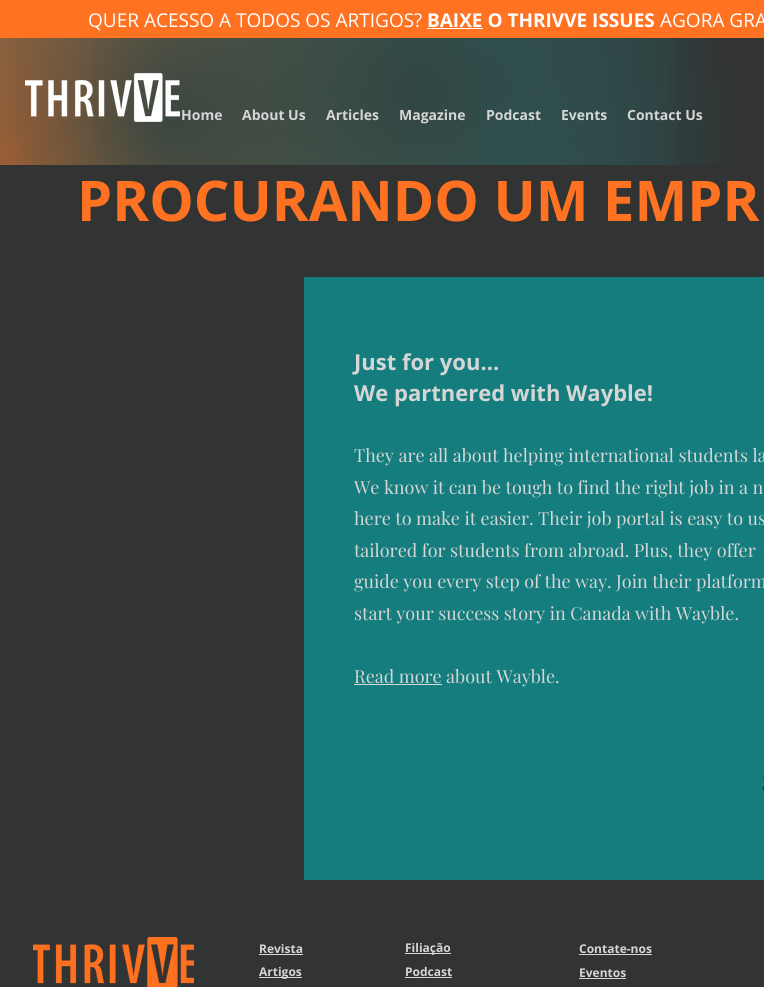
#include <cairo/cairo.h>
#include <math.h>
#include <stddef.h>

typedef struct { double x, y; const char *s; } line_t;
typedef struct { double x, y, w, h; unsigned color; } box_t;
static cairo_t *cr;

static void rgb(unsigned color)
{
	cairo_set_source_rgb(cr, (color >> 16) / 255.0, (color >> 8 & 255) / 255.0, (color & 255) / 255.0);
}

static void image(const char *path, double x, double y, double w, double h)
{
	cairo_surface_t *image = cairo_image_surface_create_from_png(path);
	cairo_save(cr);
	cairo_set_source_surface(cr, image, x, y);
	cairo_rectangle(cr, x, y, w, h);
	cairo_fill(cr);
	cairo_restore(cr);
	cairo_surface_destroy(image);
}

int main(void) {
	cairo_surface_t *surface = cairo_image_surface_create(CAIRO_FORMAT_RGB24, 764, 987);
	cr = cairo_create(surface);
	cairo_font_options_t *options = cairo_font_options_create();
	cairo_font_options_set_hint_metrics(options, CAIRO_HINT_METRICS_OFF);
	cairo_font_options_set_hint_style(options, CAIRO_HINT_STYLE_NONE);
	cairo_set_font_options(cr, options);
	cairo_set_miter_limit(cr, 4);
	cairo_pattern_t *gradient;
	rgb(0x323333);
	cairo_paint(cr);
	rgb(0xff7221);
	cairo_rectangle(cr, 0, 0, 764, 38);
	cairo_fill(cr);
	rgb(0xffffff);
	cairo_rectangle(cr, 427, 28, 56, 1);
	cairo_fill(cr);
	gradient = cairo_pattern_create_radial(131, 149, 0, 131, 149, 862);
	cairo_pattern_add_color_stop_rgba(gradient, 0, 0.027, 0.635, 0.631, 1);
	cairo_pattern_add_color_stop_rgba(gradient, 0.7, 0.196, 0.2, 0.2, 1);
	cairo_set_source(cr, gradient);
	cairo_pattern_destroy(gradient);
	cairo_rectangle(cr, 0, 38, 721, 127);
	cairo_fill(cr);
	gradient = cairo_pattern_create_radial(53, 117, 0, 53, 117, 934);
	cairo_pattern_add_color_stop_rgba(gradient, 0, 0.353, 0.439, 0.431, 0.87);
	cairo_pattern_add_color_stop_rgba(gradient, 0.7, 0.353, 0.439, 0.431, 0);
	cairo_set_source(cr, gradient);
	cairo_pattern_destroy(gradient);
	cairo_rectangle(cr, 0, 38, 677, 127);
	cairo_fill(cr);
	gradient = cairo_pattern_create_radial(0, 165, 0, 0, 165, 994);
	cairo_pattern_add_color_stop_rgba(gradient, 0, 1, 0.447, 0.129, 0.86);
	cairo_pattern_add_color_stop_rgba(gradient, 0.5, 1, 0.447, 0.129, 0);
	cairo_set_source(cr, gradient);
	cairo_pattern_destroy(gradient);
	cairo_rectangle(cr, 0, 38, 484, 127);
	cairo_fill(cr);
	gradient = cairo_pattern_create_radial(172, 121, 0, 172, 121, 818);
	cairo_pattern_add_color_stop_rgba(gradient, 0, 0.18, 0.255, 0.247, 0.87);
	cairo_pattern_add_color_stop_rgba(gradient, 0.4, 0.18, 0.255, 0.247, 0);
	cairo_set_source(cr, gradient);
	cairo_pattern_destroy(gradient);
	cairo_rectangle(cr, 0, 38, 480, 127);
	cairo_fill(cr);
	gradient = cairo_pattern_create_radial(417, 94, 0, 417, 94, 571);
	cairo_pattern_add_color_stop_rgba(gradient, 0, 0.18, 0.255, 0.247, 0.87);
	cairo_pattern_add_color_stop_rgba(gradient, 0.6, 0.18, 0.255, 0.247, 0);
	cairo_set_source(cr, gradient);
	cairo_pattern_destroy(gradient);
	cairo_rectangle(cr, 93, 38, 556, 127);
	cairo_fill(cr);
	image("img/1.png", 25, 73, 155, 49);
	rgb(0x157d7d);
	cairo_rectangle(cr, 304, 277, 460, 603);
	cairo_fill(cr);
	rgb(0xd5d6d6);
	cairo_rectangle(cr, 354, 684, 88, 1);
	cairo_fill(cr);
	image("img/2.png", 762, 776, 2, 16);
	image("img/3.png", 33, 937, 161, 50);
	{
		static const box_t items[] = {
			{259, 954, 44, 1, 0xd5d6d6},
			{405, 953, 46, 1, 0xd5d6d6},
			{579, 954, 73, 1, 0xd5d6d6},
			{259, 977, 43, 1, 0xd5d6d6},
			{405, 977, 47, 1, 0xd5d6d6},
			{579, 978, 47, 1, 0xd5d6d6},
		};
		for (size_t i = 0; i < sizeof items / sizeof *items; i++) {
			rgb(items[i].color);
			cairo_rectangle(cr, items[i].x, items[i].y, items[i].w, items[i].h);
			cairo_fill(cr);
		}
	}
	cairo_select_font_face(cr, "Open Sans", CAIRO_FONT_SLANT_NORMAL, CAIRO_FONT_WEIGHT_NORMAL);
	cairo_set_font_size(cr, 19);
	rgb(0xffffff);
	cairo_move_to(cr, 88, 27);
	cairo_show_text(cr, "QUER ACESSO A TODOS OS ARTIGOS?");
	cairo_select_font_face(cr, "Open Sans", CAIRO_FONT_SLANT_NORMAL, CAIRO_FONT_WEIGHT_BOLD);
	cairo_move_to(cr, 427, 27);
	cairo_show_text(cr, "BAIXE O THRIVVE ISSUES");
	cairo_select_font_face(cr, "Open Sans", CAIRO_FONT_SLANT_NORMAL, CAIRO_FONT_WEIGHT_NORMAL);
	cairo_move_to(cr, 660, 27);
	cairo_show_text(cr, "AGORA GRA");
	cairo_select_font_face(cr, "Open Sans", CAIRO_FONT_SLANT_NORMAL, CAIRO_FONT_WEIGHT_BOLD);
	cairo_set_font_size(cr, 14);
	rgb(0xd5d6d6);
	{
		static const line_t items[] = {
			{181, 120, "Home"},
			{242, 120, "About Us"},
			{326, 120, "Articles"},
			{399, 120, "Magazine"},
			{486, 120, "Podcast"},
			{561, 120, "Events"},
			{627, 120, "Contact Us"},
		};
		for (size_t i = 0; i < sizeof items / sizeof *items; i++) {
			cairo_move_to(cr, items[i].x, items[i].y);
			cairo_show_text(cr, items[i].s);
		}
	}
	cairo_set_font_size(cr, 56);
	rgb(0xff7221);
	cairo_move_to(cr, 77, 221);
	cairo_show_text(cr, "PROCURANDO UM EMPR");
	cairo_set_font_size(cr, 22);
	rgb(0xd5d6d6);
	cairo_move_to(cr, 354, 370);
	cairo_show_text(cr, "Just for you...");
	cairo_move_to(cr, 354, 401);
	cairo_show_text(cr, "We partnered with Wayble!");
	cairo_select_font_face(cr, "Playfair Display", CAIRO_FONT_SLANT_NORMAL, CAIRO_FONT_WEIGHT_NORMAL);
	cairo_set_font_size(cr, 18);
	{
		static const line_t items[] = {
			{354, 462, "They are all about helping international students la"},
			{354, 494, "We know it can be tough to find the right job in a n"},
			{354, 525, "here to make it easier. Their job portal is easy to us"},
			{354, 557, "tailored for students from abroad. Plus, they offer"},
			{354, 588, "guide you every step of the way. Join their platform"},
			{354, 620, "start your success story in Canada with Wayble."},
			{354, 683, "Read more about Wayble."},
		};
		for (size_t i = 0; i < sizeof items / sizeof *items; i++) {
			cairo_move_to(cr, items[i].x, items[i].y);
			cairo_show_text(cr, items[i].s);
		}
	}
	cairo_select_font_face(cr, "Open Sans", CAIRO_FONT_SLANT_NORMAL, CAIRO_FONT_WEIGHT_BOLD);
	cairo_set_font_size(cr, 12);
	{
		static const line_t items[] = {
			{259, 953, "Revista"},
			{405, 952, "Filiação"},
			{579, 953, "Contate-nos"},
			{259, 976, "Artigos"},
			{405, 976, "Podcast"},
			{579, 977, "Eventos"},
		};
		for (size_t i = 0; i < sizeof items / sizeof *items; i++) {
			cairo_move_to(cr, items[i].x, items[i].y);
			cairo_show_text(cr, items[i].s);
		}
	}
	cairo_surface_write_to_png(surface, "page.png");
	cairo_font_options_destroy(options);
	cairo_destroy(cr);
	cairo_surface_destroy(surface);
	return 0;
}
